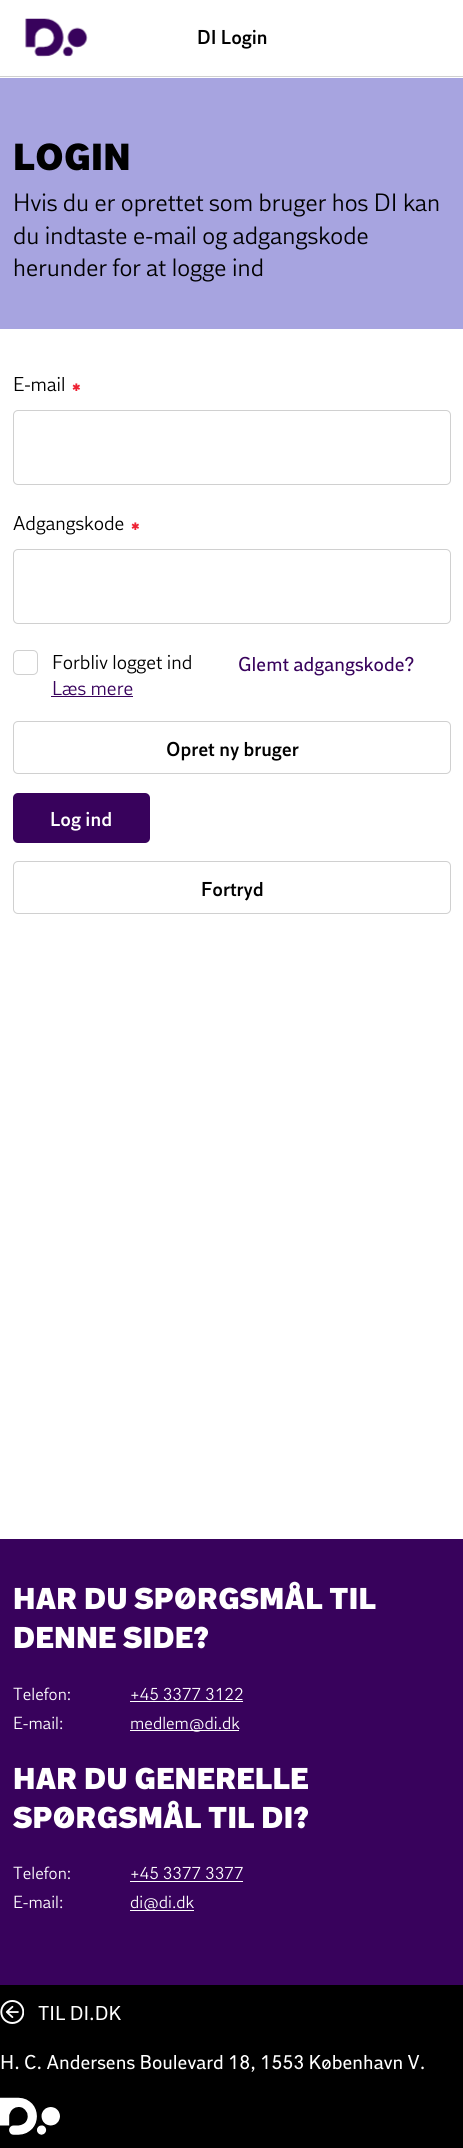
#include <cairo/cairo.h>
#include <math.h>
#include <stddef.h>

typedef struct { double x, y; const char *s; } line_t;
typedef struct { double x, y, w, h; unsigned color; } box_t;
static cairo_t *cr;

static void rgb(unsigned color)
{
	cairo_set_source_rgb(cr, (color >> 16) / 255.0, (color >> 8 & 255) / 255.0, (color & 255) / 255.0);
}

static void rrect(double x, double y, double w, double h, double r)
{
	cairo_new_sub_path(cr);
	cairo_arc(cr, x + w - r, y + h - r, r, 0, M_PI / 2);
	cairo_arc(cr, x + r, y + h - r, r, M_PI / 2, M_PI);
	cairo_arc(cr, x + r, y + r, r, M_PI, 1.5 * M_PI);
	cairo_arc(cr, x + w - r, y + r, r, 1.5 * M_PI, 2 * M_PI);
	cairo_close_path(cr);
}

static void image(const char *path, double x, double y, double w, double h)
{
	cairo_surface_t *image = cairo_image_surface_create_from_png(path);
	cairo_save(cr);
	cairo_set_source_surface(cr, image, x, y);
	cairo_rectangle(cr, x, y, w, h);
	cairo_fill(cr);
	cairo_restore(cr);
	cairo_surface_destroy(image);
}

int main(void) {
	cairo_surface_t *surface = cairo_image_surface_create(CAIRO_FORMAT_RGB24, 463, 2148);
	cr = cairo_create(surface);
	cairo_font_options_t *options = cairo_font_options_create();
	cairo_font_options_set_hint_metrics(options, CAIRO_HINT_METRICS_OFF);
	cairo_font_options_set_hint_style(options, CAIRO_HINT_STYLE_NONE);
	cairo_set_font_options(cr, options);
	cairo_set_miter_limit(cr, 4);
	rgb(0xffffff);
	cairo_paint(cr);
	image("img/1.png", 25, 18, 63, 39);
	rgb(0xd0d0d0);
	cairo_rectangle(cr, 0, 76, 463, 1);
	cairo_fill(cr);
	rgb(0xa7a4e0);
	cairo_rectangle(cr, 0, 78, 463, 251);
	cairo_fill(cr);
	rrect(13.5, 410.5, 437, 74, 4.5);
	rgb(0xd0d0d0);
	cairo_set_line_width(cr, 1);
	cairo_stroke(cr);
	rrect(13.5, 549.5, 437, 74, 4.5);
	cairo_stroke(cr);
	rrect(13.5, 650.5, 24, 24, 4.5);
	cairo_stroke(cr);
	rgb(0x38025c);
	cairo_rectangle(cr, 51, 696, 82, 1);
	cairo_fill(cr);
	rrect(13.5, 721.5, 437, 52, 4.5);
	rgb(0xd0d0d0);
	cairo_stroke(cr);
	rgb(0x38025c);
	rrect(13, 793, 137, 50, 5);
	cairo_fill(cr);
	rrect(13.5, 861.5, 437, 52, 4.5);
	rgb(0xd0d0d0);
	cairo_stroke(cr);
	{
		static const box_t items[] = {
			{0, 1539, 463, 446, 0x38025c},
			{130, 1701, 113, 1, 0xffffff},
			{130, 1730, 109, 1, 0xffffff},
			{130, 1881, 113, 1, 0xffffff},
			{130, 1910, 64, 1, 0xffffff},
			{0, 1985, 463, 163, 0x000000},
		};
		for (size_t i = 0; i < sizeof items / sizeof *items; i++) {
			rgb(items[i].color);
			cairo_rectangle(cr, items[i].x, items[i].y, items[i].w, items[i].h);
			cairo_fill(cr);
		}
	}
	image("img/2.png", 0, 2000, 24, 24);
	image("img/3.png", 0, 2097, 60, 38);
	cairo_select_font_face(cr, "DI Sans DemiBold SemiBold", CAIRO_FONT_SLANT_NORMAL, CAIRO_FONT_WEIGHT_NORMAL);
	cairo_set_font_size(cr, 20);
	cairo_move_to(cr, 197, 44);
	cairo_show_text(cr, "DI Login");
	cairo_select_font_face(cr, "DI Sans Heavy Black", CAIRO_FONT_SLANT_NORMAL, CAIRO_FONT_WEIGHT_NORMAL);
	cairo_set_font_size(cr, 37.5);
	cairo_move_to(cr, 13, 170);
	cairo_show_text(cr, "LOGIN");
	cairo_select_font_face(cr, "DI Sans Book", CAIRO_FONT_SLANT_NORMAL, CAIRO_FONT_WEIGHT_NORMAL);
	cairo_set_font_size(cr, 25);
	{
		static const line_t items[] = {
			{13, 211, "Hvis du er oprettet som bruger hos DI kan"},
			{13, 244, "du indtaste e-mail og adgangskode"},
			{13, 276, "herunder for at logge ind"},
		};
		for (size_t i = 0; i < sizeof items / sizeof *items; i++) {
			cairo_move_to(cr, items[i].x, items[i].y);
			cairo_show_text(cr, items[i].s);
		}
	}
	cairo_set_font_size(cr, 20);
	cairo_move_to(cr, 13, 391);
	cairo_show_text(cr, "E-mail");
	cairo_select_font_face(cr, "DejaVu Sans", CAIRO_FONT_SLANT_NORMAL, CAIRO_FONT_WEIGHT_BOLD);
	cairo_set_font_size(cr, 10);
	rgb(0xee2233);
	cairo_move_to(cr, 72, 391);
	cairo_show_text(cr, "✱");
	cairo_select_font_face(cr, "DI Sans Book", CAIRO_FONT_SLANT_NORMAL, CAIRO_FONT_WEIGHT_NORMAL);
	cairo_set_font_size(cr, 20);
	rgb(0x000000);
	cairo_move_to(cr, 13, 530);
	cairo_show_text(cr, "Adgangskode");
	cairo_select_font_face(cr, "DejaVu Sans", CAIRO_FONT_SLANT_NORMAL, CAIRO_FONT_WEIGHT_BOLD);
	cairo_set_font_size(cr, 10);
	rgb(0xee2233);
	cairo_move_to(cr, 131, 530);
	cairo_show_text(cr, "✱");
	cairo_select_font_face(cr, "DI Sans Book", CAIRO_FONT_SLANT_NORMAL, CAIRO_FONT_WEIGHT_NORMAL);
	cairo_set_font_size(cr, 20);
	rgb(0x000000);
	cairo_move_to(cr, 52, 669);
	cairo_show_text(cr, "Forbliv logget ind");
	rgb(0x38025c);
	cairo_move_to(cr, 52, 695);
	cairo_show_text(cr, "Læs mere");
	cairo_select_font_face(cr, "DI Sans", CAIRO_FONT_SLANT_NORMAL, CAIRO_FONT_WEIGHT_NORMAL);
	cairo_move_to(cr, 238, 671);
	cairo_show_text(cr, "Glemt adgangskode?");
	cairo_select_font_face(cr, "DI Sans DemiBold SemiBold", CAIRO_FONT_SLANT_NORMAL, CAIRO_FONT_WEIGHT_NORMAL);
	rgb(0x000000);
	cairo_move_to(cr, 166, 756);
	cairo_show_text(cr, "Opret ny bruger");
	rgb(0xffffff);
	cairo_move_to(cr, 50, 826);
	cairo_show_text(cr, "Log ind");
	rgb(0x000000);
	cairo_move_to(cr, 201, 896);
	cairo_show_text(cr, "Fortryd");
	cairo_select_font_face(cr, "DI Sans Heavy Black", CAIRO_FONT_SLANT_NORMAL, CAIRO_FONT_WEIGHT_NORMAL);
	cairo_set_font_size(cr, 30);
	rgb(0xffffff);
	cairo_move_to(cr, 13, 1609);
	cairo_show_text(cr, "HAR DU SPØRGSMÅL TIL");
	cairo_move_to(cr, 13, 1648);
	cairo_show_text(cr, "DENNE SIDE?");
	cairo_select_font_face(cr, "DI Sans Book", CAIRO_FONT_SLANT_NORMAL, CAIRO_FONT_WEIGHT_NORMAL);
	cairo_set_font_size(cr, 17.5);
	{
		static const line_t items[] = {
			{13, 1700, "Telefon:"},
			{130, 1700, "+45 3377 3122"},
			{13, 1729, "E-mail:"},
			{130, 1729, "medlem@di.dk"},
		};
		for (size_t i = 0; i < sizeof items / sizeof *items; i++) {
			cairo_move_to(cr, items[i].x, items[i].y);
			cairo_show_text(cr, items[i].s);
		}
	}
	cairo_select_font_face(cr, "DI Sans Heavy Black", CAIRO_FONT_SLANT_NORMAL, CAIRO_FONT_WEIGHT_NORMAL);
	cairo_set_font_size(cr, 30);
	cairo_move_to(cr, 13, 1789);
	cairo_show_text(cr, "HAR DU GENERELLE");
	cairo_move_to(cr, 13, 1828);
	cairo_show_text(cr, "SPØRGSMÅL TIL DI?");
	cairo_select_font_face(cr, "DI Sans Book", CAIRO_FONT_SLANT_NORMAL, CAIRO_FONT_WEIGHT_NORMAL);
	cairo_set_font_size(cr, 17.5);
	{
		static const line_t items[] = {
			{13, 1879, "Telefon:"},
			{130, 1879, "+45 3377 3377"},
			{13, 1908, "E-mail:"},
			{130, 1908, "di@di.dk"},
		};
		for (size_t i = 0; i < sizeof items / sizeof *items; i++) {
			cairo_move_to(cr, items[i].x, items[i].y);
			cairo_show_text(cr, items[i].s);
		}
	}
	cairo_select_font_face(cr, "DI Sans", CAIRO_FONT_SLANT_NORMAL, CAIRO_FONT_WEIGHT_NORMAL);
	cairo_set_font_size(cr, 20);
	cairo_move_to(cr, 38, 2020);
	cairo_show_text(cr, "TIL DI.DK");
	cairo_move_to(cr, 0, 2069);
	cairo_show_text(cr, "H. C. Andersens Boulevard 18, 1553 København V.");
	cairo_surface_write_to_png(surface, "page.png");
	cairo_font_options_destroy(options);
	cairo_destroy(cr);
	cairo_surface_destroy(surface);
	return 0;
}
